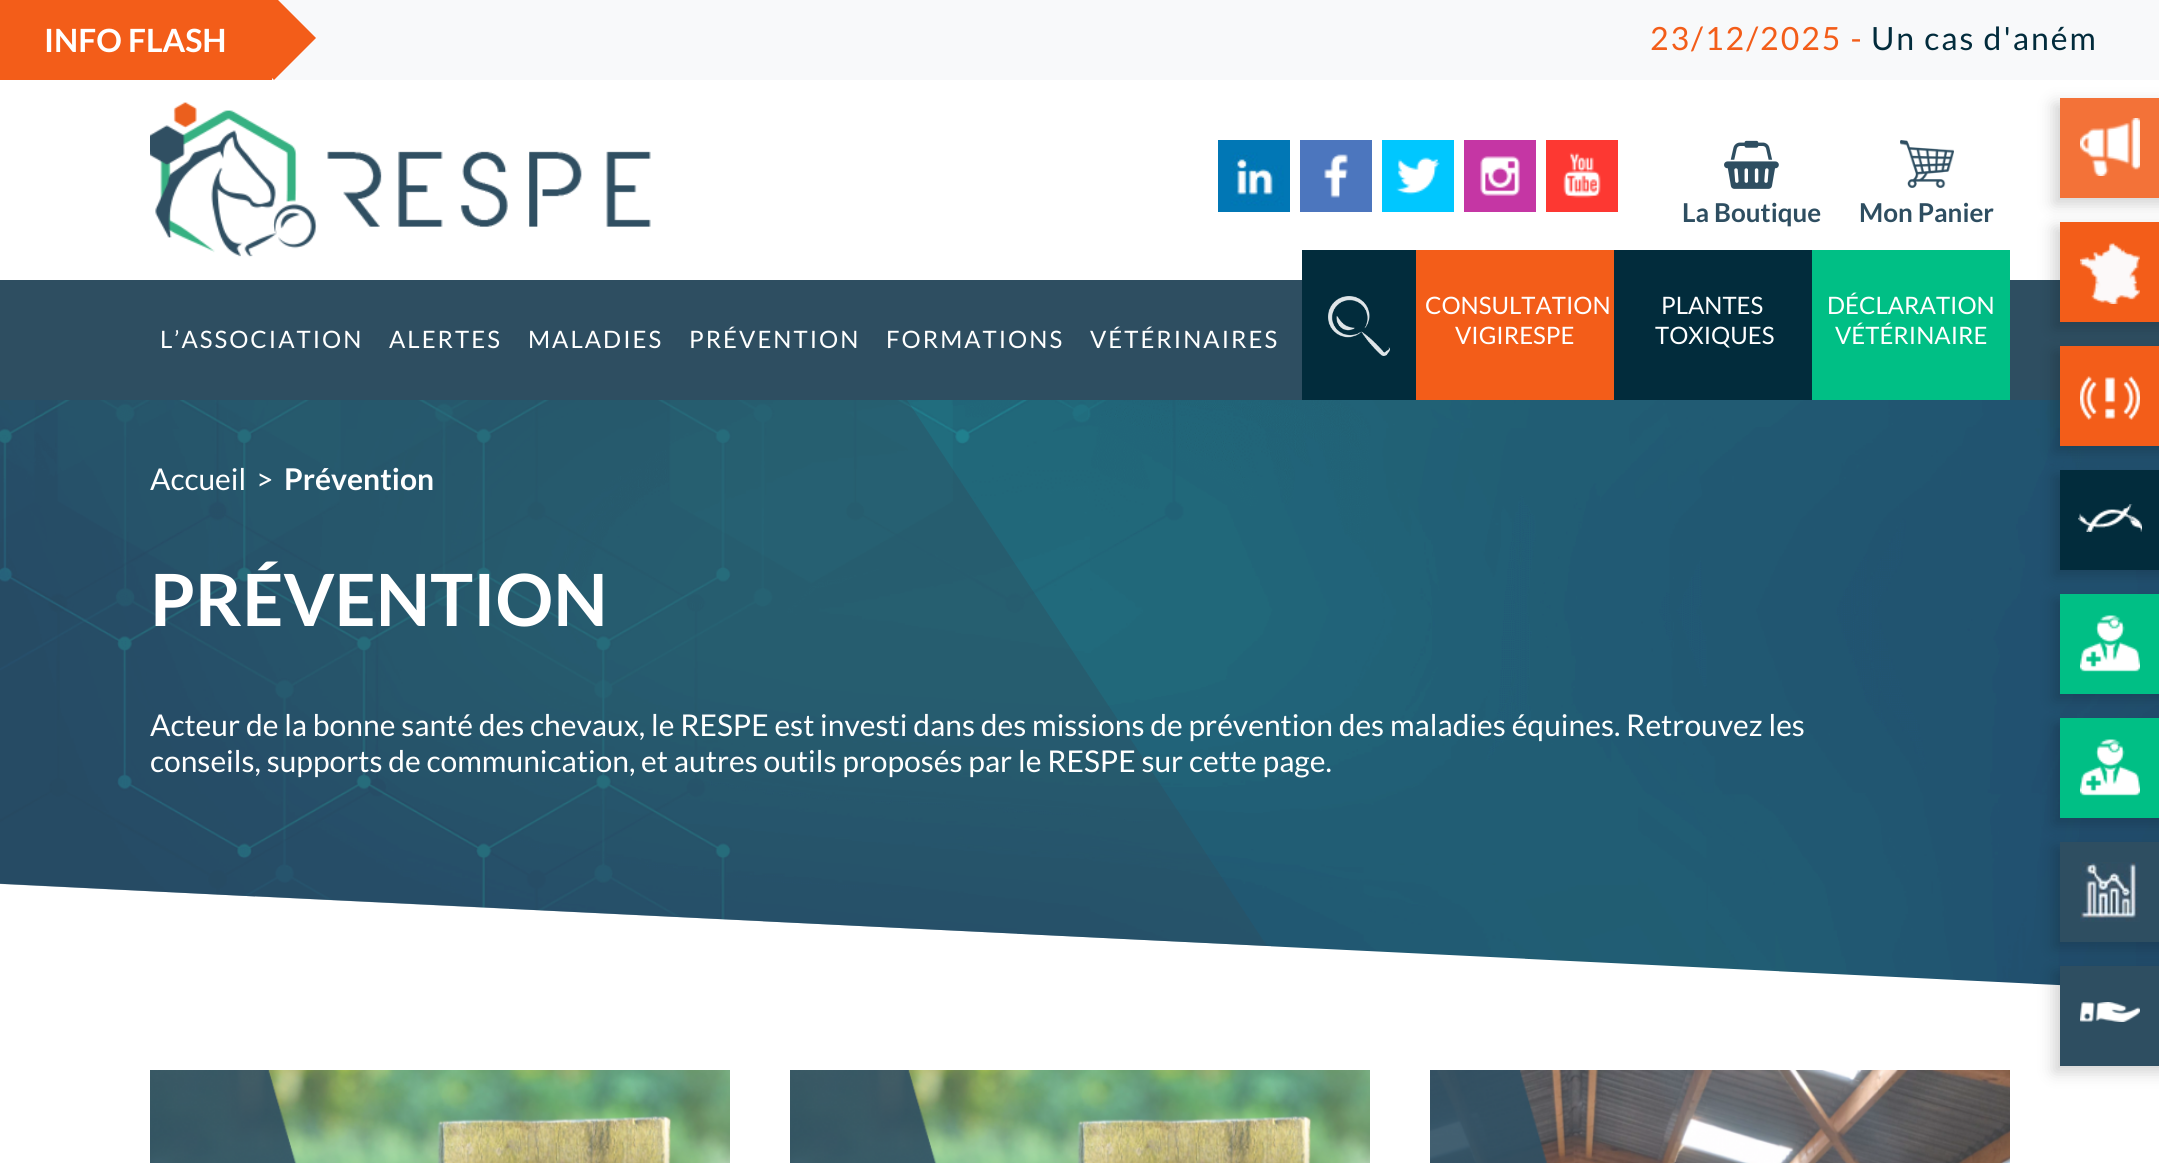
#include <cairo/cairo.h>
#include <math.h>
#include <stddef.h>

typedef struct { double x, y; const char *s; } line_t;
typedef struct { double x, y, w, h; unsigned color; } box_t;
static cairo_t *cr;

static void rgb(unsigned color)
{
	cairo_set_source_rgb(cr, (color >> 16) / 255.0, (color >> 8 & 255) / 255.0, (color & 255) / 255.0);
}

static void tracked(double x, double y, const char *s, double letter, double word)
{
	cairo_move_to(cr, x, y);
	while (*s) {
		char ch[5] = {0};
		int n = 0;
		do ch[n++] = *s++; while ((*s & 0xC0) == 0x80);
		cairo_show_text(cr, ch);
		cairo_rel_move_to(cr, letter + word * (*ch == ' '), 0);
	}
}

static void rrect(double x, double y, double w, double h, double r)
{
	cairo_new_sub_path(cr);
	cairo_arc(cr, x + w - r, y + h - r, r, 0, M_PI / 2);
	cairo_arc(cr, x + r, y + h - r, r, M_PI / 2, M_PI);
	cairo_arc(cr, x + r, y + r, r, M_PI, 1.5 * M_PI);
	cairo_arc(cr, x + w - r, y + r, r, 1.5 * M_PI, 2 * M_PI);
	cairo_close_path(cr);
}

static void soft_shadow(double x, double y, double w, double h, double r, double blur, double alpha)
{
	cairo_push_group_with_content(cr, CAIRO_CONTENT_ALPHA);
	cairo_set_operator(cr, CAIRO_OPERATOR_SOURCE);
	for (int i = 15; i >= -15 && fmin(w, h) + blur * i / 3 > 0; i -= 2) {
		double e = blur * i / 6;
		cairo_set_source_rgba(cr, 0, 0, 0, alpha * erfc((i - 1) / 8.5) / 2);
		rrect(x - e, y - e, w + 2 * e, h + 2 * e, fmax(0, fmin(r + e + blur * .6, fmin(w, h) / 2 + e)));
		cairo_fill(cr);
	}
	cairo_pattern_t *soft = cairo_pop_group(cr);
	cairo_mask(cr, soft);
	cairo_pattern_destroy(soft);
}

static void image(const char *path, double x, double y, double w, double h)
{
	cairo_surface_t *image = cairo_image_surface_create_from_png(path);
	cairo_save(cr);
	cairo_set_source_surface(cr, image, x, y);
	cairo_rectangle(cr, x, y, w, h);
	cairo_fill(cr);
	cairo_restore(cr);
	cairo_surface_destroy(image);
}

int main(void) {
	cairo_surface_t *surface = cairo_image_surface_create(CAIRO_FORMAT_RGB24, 2159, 1163);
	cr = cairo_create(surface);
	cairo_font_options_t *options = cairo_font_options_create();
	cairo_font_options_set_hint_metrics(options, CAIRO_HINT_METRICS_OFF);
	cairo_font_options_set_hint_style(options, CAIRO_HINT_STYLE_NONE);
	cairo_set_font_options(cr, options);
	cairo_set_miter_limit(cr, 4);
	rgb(0xffffff);
	cairo_paint(cr);
	rgb(0xf8f9fa);
	cairo_rectangle(cr, 272, 0, 1887, 80);
	cairo_fill(cr);
	rgb(0xf35d19);
	cairo_new_path(cr);
	cairo_move_to(cr, 274, -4);
	cairo_line_to(cr, 316, 38);
	cairo_line_to(cr, 274, 80);
	cairo_line_to(cr, 232, 38);
	cairo_close_path(cr);
	cairo_fill(cr);
	cairo_rectangle(cr, 0, 0, 272, 80);
	cairo_fill(cr);
	image("img/1.png", 150, 102, 501, 155);
	image("img/2.png", 1218, 140, 72, 72);
	image("img/3.png", 1300, 140, 72, 72);
	image("img/4.png", 1382, 140, 72, 72);
	image("img/5.png", 1464, 140, 72, 72);
	image("img/6.png", 1546, 140, 72, 72);
	image("img/7.png", 1724, 140, 55, 49);
	image("img/8.png", 1900, 140, 54, 48);
	rgb(0x2e4e61);
	cairo_rectangle(cr, 0, 280, 2159, 120);
	cairo_fill(cr);
	rgb(0x022c3c);
	cairo_rectangle(cr, 1302, 250, 114, 150);
	cairo_fill(cr);
	image("img/9.png", 1328, 296, 62, 60);
	{
		static const box_t items[] = {
			{1416, 250, 198, 150, 0xf35d19},
			{1614, 250, 198, 150, 0x022c3c},
			{1812, 250, 198, 150, 0x00bf85},
		};
		for (size_t i = 0; i < sizeof items / sizeof *items; i++) {
			rgb(items[i].color);
			cairo_rectangle(cr, items[i].x, items[i].y, items[i].w, items[i].h);
			cairo_fill(cr);
		}
	}
	image("img/10.png", 0, 400, 2159, 586);
	cairo_set_source_rgba(cr, 0.18, 0.306, 0.38, 0.4);
	cairo_new_path(cr);
	cairo_move_to(cr, 0, 400);
	cairo_line_to(cr, 907, 400);
	cairo_line_to(cr, 1267, 946);
	cairo_line_to(cr, 0, 884);
	cairo_close_path(cr);
	cairo_fill(cr);
	image("img/11.png", 150, 1070, 580, 93);
	image("img/11.png", 790, 1070, 580, 93);
	image("img/12.png", 1430, 1070, 580, 93);
	rgb(0x000000);
	soft_shadow(2054, 104, 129, 100, 0, 8, 0.18);
	rgb(0xf37238);
	cairo_rectangle(cr, 2060, 98, 99, 100);
	cairo_fill(cr);
	image("img/13.png", 2080, 118, 60, 58);
	rgb(0x000000);
	soft_shadow(2054, 228, 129, 100, 0, 8, 0.18);
	rgb(0xf35d19);
	cairo_rectangle(cr, 2060, 222, 99, 100);
	cairo_fill(cr);
	image("img/14.png", 2080, 242, 60, 62);
	rgb(0x000000);
	soft_shadow(2054, 352, 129, 100, 0, 8, 0.18);
	rgb(0xf35d19);
	cairo_rectangle(cr, 2060, 346, 99, 100);
	cairo_fill(cr);
	image("img/15.png", 2080, 376, 60, 44);
	rgb(0x000000);
	soft_shadow(2054, 476, 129, 100, 0, 8, 0.18);
	rgb(0x022c3c);
	cairo_rectangle(cr, 2060, 470, 99, 100);
	cairo_fill(cr);
	image("img/16.png", 2078, 504, 64, 28);
	rgb(0x000000);
	soft_shadow(2054, 600, 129, 100, 0, 8, 0.18);
	rgb(0x00bf85);
	cairo_rectangle(cr, 2060, 594, 99, 100);
	cairo_fill(cr);
	image("img/17.png", 2080, 615, 60, 57);
	rgb(0x000000);
	soft_shadow(2054, 724, 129, 100, 0, 8, 0.18);
	rgb(0x00bf85);
	cairo_rectangle(cr, 2060, 718, 99, 100);
	cairo_fill(cr);
	image("img/17.png", 2080, 739, 60, 57);
	rgb(0x000000);
	soft_shadow(2054, 848, 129, 100, 0, 8, 0.18);
	rgb(0x2e4e61);
	cairo_rectangle(cr, 2060, 842, 99, 100);
	cairo_fill(cr);
	image("img/18.png", 2080, 862, 60, 60);
	rgb(0x000000);
	soft_shadow(2054, 972, 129, 100, 0, 8, 0.18);
	rgb(0x2e4e61);
	cairo_rectangle(cr, 2060, 966, 99, 100);
	cairo_fill(cr);
	image("img/19.png", 2080, 1002, 60, 20);
	cairo_select_font_face(cr, "Lato", CAIRO_FONT_SLANT_NORMAL, CAIRO_FONT_WEIGHT_BOLD);
	cairo_set_font_size(cr, 32);
	rgb(0xffffff);
	cairo_move_to(cr, 44, 52);
	cairo_show_text(cr, "INFO FLASH");
	cairo_select_font_face(cr, "Lato", CAIRO_FONT_SLANT_NORMAL, CAIRO_FONT_WEIGHT_NORMAL);
	rgb(0xf35d19);
	tracked(1650, 50, "23/12/2025 -", 2, 0);
	rgb(0x022c3c);
	tracked(1871, 50, "Un cas d'aném", 2, 0);
	cairo_select_font_face(cr, "Lato", CAIRO_FONT_SLANT_NORMAL, CAIRO_FONT_WEIGHT_BOLD);
	cairo_set_font_size(cr, 26);
	rgb(0x2e4e61);
	cairo_move_to(cr, 1682, 222);
	cairo_show_text(cr, "La Boutique");
	cairo_move_to(cr, 1859, 222);
	cairo_show_text(cr, "Mon Panier");
	cairo_select_font_face(cr, "Lato", CAIRO_FONT_SLANT_NORMAL, CAIRO_FONT_WEIGHT_NORMAL);
	cairo_set_font_size(cr, 24);
	rgb(0xffffff);
	{
		static const line_t items[] = {
			{160, 348, "L’ASSOCIATION"},
			{389, 348, "ALERTES"},
			{528, 348, "MALADIES"},
			{689, 348, "PRÉVENTION"},
			{886, 348, "FORMATIONS"},
			{1090, 348, "VÉTÉRINAIRES"},
		};
		for (size_t i = 0; i < sizeof items / sizeof *items; i++) {
			tracked(items[i].x, items[i].y, items[i].s, 2, 0);
		}
	}
	{
		static const line_t items[] = {
			{1425, 314, "CONSULTATION"},
			{1455, 344, "VIGIRESPE"},
			{1661, 314, "PLANTES"},
			{1655, 344, "TOXIQUES"},
			{1827, 314, "DÉCLARATION"},
			{1835, 344, "VÉTÉRINAIRE"},
		};
		for (size_t i = 0; i < sizeof items / sizeof *items; i++) {
			cairo_move_to(cr, items[i].x, items[i].y);
			cairo_show_text(cr, items[i].s);
		}
	}
	cairo_set_font_size(cr, 30);
	cairo_move_to(cr, 150, 490);
	cairo_show_text(cr, "Accueil");
	cairo_move_to(cr, 256, 490);
	cairo_show_text(cr, ">");
	cairo_select_font_face(cr, "Lato", CAIRO_FONT_SLANT_NORMAL, CAIRO_FONT_WEIGHT_BOLD);
	cairo_move_to(cr, 284, 490);
	cairo_show_text(cr, "Prévention");
	cairo_set_font_size(cr, 72);
	cairo_move_to(cr, 150, 626);
	cairo_show_text(cr, "PRÉVENTION");
	cairo_select_font_face(cr, "Lato", CAIRO_FONT_SLANT_NORMAL, CAIRO_FONT_WEIGHT_NORMAL);
	cairo_set_font_size(cr, 30);
	cairo_move_to(cr, 150, 736);
	cairo_show_text(cr, "Acteur de la bonne santé des chevaux, le RESPE est investi dans des missions de prévention des maladies équines. Retrouvez les");
	cairo_move_to(cr, 150, 772);
	cairo_show_text(cr, "conseils, supports de communication, et autres outils proposés par le RESPE sur cette page.");
	cairo_surface_write_to_png(surface, "page.png");
	cairo_font_options_destroy(options);
	cairo_destroy(cr);
	cairo_surface_destroy(surface);
	return 0;
}
